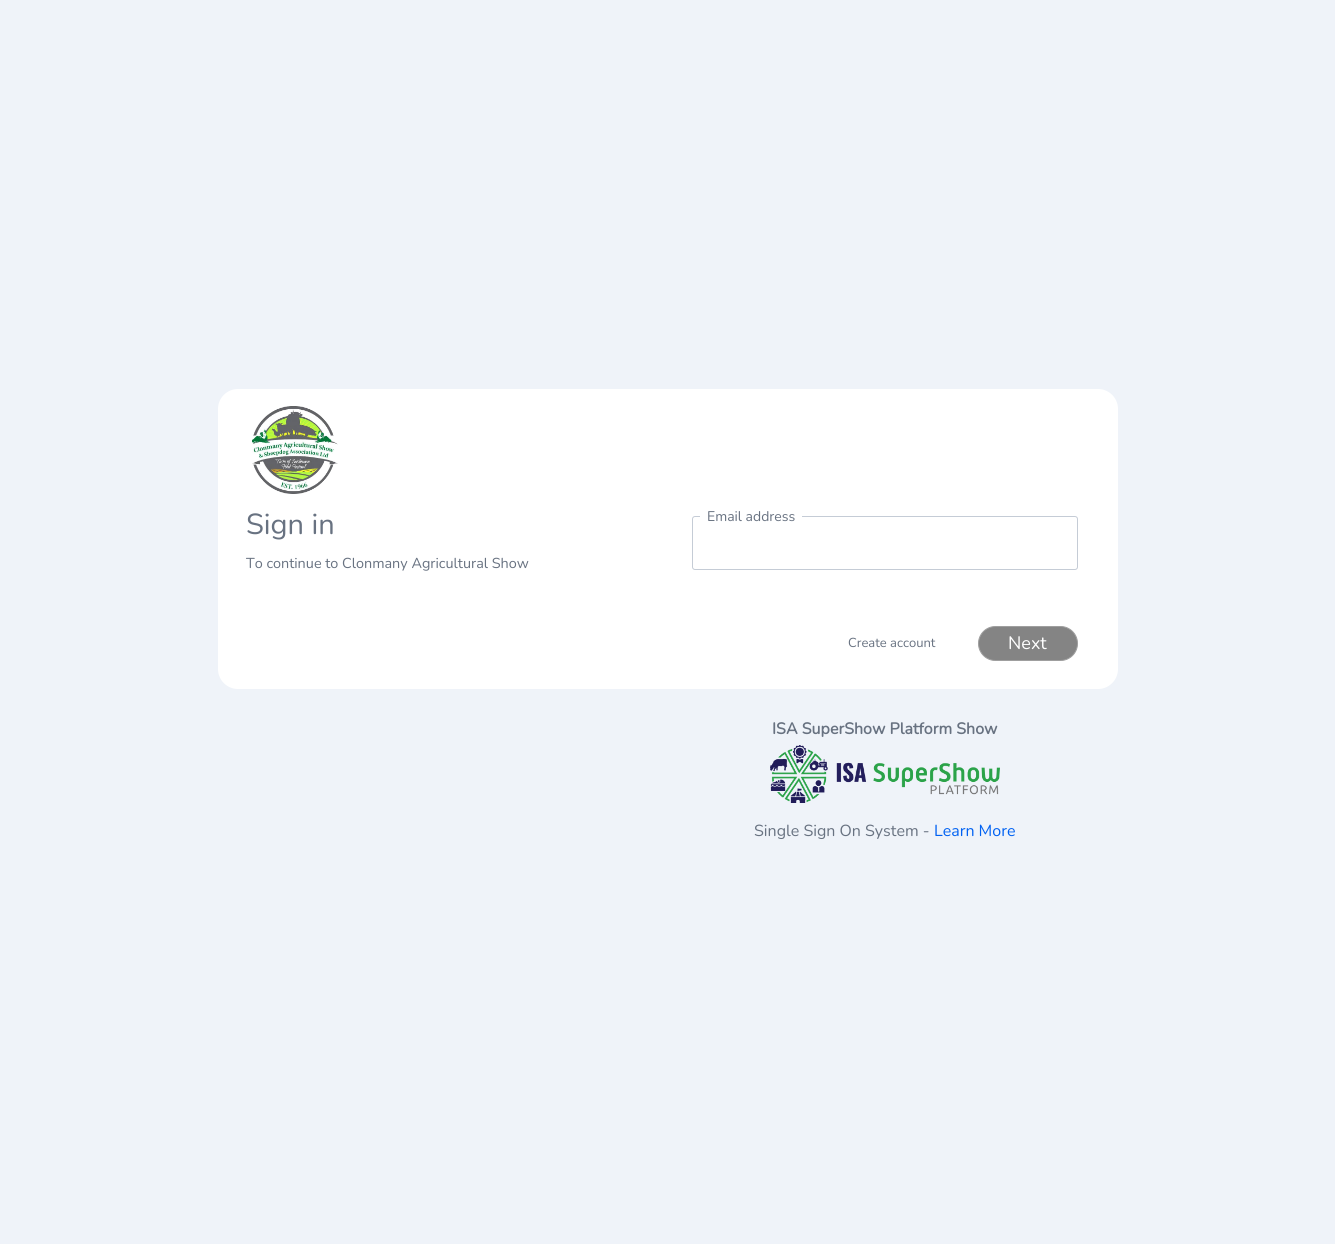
#include <cairo/cairo.h>
#include <math.h>
#include <stddef.h>

static cairo_t *cr;

static void rgb(unsigned color)
{
	cairo_set_source_rgb(cr, (color >> 16) / 255.0, (color >> 8 & 255) / 255.0, (color & 255) / 255.0);
}

static void rrect(double x, double y, double w, double h, double r)
{
	cairo_new_sub_path(cr);
	cairo_arc(cr, x + w - r, y + h - r, r, 0, M_PI / 2);
	cairo_arc(cr, x + r, y + h - r, r, M_PI / 2, M_PI);
	cairo_arc(cr, x + r, y + r, r, M_PI, 1.5 * M_PI);
	cairo_arc(cr, x + w - r, y + r, r, 1.5 * M_PI, 2 * M_PI);
	cairo_close_path(cr);
}

static void image(const char *path, double x, double y, double w, double h)
{
	cairo_surface_t *image = cairo_image_surface_create_from_png(path);
	cairo_save(cr);
	cairo_set_source_surface(cr, image, x, y);
	cairo_rectangle(cr, x, y, w, h);
	cairo_fill(cr);
	cairo_restore(cr);
	cairo_surface_destroy(image);
}

int main(void) {
	cairo_surface_t *surface = cairo_image_surface_create(CAIRO_FORMAT_RGB24, 1335, 1244);
	cr = cairo_create(surface);
	cairo_font_options_t *options = cairo_font_options_create();
	cairo_font_options_set_hint_metrics(options, CAIRO_HINT_METRICS_OFF);
	cairo_font_options_set_hint_style(options, CAIRO_HINT_STYLE_NONE);
	cairo_set_font_options(cr, options);
	cairo_set_miter_limit(cr, 4);
	rgb(0xeff3f9);
	cairo_paint(cr);
	rgb(0xffffff);
	rrect(218, 389, 900, 300, 20);
	cairo_fill(cr);
	image("img/1.png", 251, 406, 87, 88);
	rrect(692.5, 516.5, 385, 53, 2.5);
	rgb(0xc5ccd6);
	cairo_set_line_width(cr, 1);
	cairo_stroke(cr);
	rgb(0xffffff);
	cairo_rectangle(cr, 700, 516, 102, 1);
	cairo_fill(cr);
	rgb(0x848484);
	rrect(978.5, 626.5, 99, 34, 17);
	cairo_fill_preserve(cr);
	rgb(0x9f9f9f);
	cairo_stroke(cr);
	image("img/2.png", 770, 745, 230, 58);
	cairo_select_font_face(cr, "Nunito ExtraLight", CAIRO_FONT_SLANT_NORMAL, CAIRO_FONT_WEIGHT_NORMAL);
	cairo_set_font_size(cr, 29);
	rgb(0x687281);
	cairo_move_to(cr, 246, 534);
	cairo_show_text(cr, "Sign in");
	cairo_set_font_size(cr, 14.4);
	cairo_move_to(cr, 246, 568);
	cairo_show_text(cr, "To continue to Clonmany Agricultural Show");
	cairo_set_font_size(cr, 14);
	cairo_move_to(cr, 707, 521);
	cairo_show_text(cr, "Email address");
	cairo_set_font_size(cr, 13);
	cairo_move_to(cr, 848, 647);
	cairo_show_text(cr, "Create account");
	cairo_set_font_size(cr, 18);
	rgb(0xffffff);
	cairo_move_to(cr, 1008, 649);
	cairo_show_text(cr, "Next");
	cairo_select_font_face(cr, "Nunito", CAIRO_FONT_SLANT_NORMAL, CAIRO_FONT_WEIGHT_BOLD);
	cairo_set_font_size(cr, 16);
	rgb(0x687281);
	cairo_move_to(cr, 772, 734);
	cairo_show_text(cr, "ISA SuperShow Platform Show");
	cairo_select_font_face(cr, "Nunito ExtraLight", CAIRO_FONT_SLANT_NORMAL, CAIRO_FONT_WEIGHT_NORMAL);
	cairo_move_to(cr, 754, 836);
	cairo_show_text(cr, "Single Sign On System -");
	rgb(0x0061f2);
	cairo_move_to(cr, 934, 836);
	cairo_show_text(cr, "Learn More");
	cairo_surface_write_to_png(surface, "page.png");
	cairo_font_options_destroy(options);
	cairo_destroy(cr);
	cairo_surface_destroy(surface);
	return 0;
}
